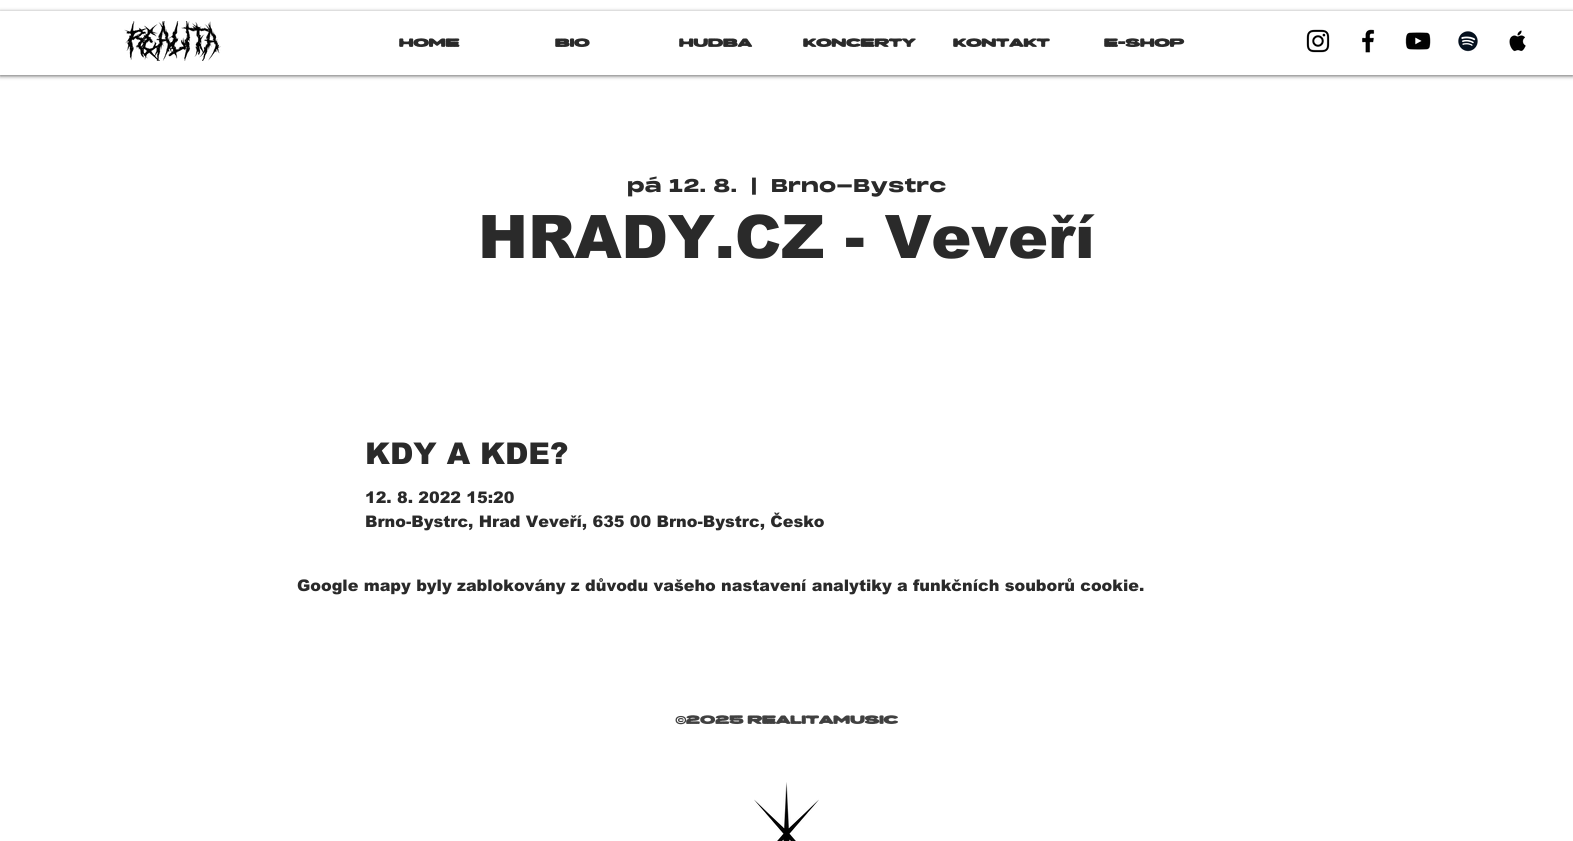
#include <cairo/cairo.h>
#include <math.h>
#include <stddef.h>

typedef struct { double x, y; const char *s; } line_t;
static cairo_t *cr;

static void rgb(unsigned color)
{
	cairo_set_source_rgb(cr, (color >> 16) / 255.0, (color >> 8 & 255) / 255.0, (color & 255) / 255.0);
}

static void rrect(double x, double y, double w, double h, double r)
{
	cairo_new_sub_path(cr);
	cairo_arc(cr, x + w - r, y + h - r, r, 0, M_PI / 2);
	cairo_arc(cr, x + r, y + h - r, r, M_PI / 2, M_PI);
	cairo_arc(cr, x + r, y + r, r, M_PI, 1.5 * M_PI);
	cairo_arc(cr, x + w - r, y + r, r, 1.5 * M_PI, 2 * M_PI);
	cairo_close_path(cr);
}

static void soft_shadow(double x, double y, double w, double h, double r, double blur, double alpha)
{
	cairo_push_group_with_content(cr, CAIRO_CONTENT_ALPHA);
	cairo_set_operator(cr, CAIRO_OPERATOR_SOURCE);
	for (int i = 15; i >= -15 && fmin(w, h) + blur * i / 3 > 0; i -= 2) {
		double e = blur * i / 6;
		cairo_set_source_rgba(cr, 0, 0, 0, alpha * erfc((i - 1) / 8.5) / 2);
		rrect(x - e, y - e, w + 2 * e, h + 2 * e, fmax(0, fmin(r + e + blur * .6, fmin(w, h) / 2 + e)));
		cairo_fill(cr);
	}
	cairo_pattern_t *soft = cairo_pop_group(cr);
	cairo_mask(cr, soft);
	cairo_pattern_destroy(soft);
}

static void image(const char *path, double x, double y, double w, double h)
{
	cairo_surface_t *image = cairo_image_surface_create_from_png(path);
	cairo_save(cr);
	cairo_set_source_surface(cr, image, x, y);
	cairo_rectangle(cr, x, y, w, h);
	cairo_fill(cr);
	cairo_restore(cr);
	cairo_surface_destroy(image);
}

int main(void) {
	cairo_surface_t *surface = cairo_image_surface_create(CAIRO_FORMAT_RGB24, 1573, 841);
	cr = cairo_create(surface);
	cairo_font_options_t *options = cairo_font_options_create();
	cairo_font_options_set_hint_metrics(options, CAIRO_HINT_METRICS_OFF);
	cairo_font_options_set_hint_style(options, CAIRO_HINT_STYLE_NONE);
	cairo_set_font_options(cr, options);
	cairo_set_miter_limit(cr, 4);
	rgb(0xffffff);
	cairo_paint(cr);
	cairo_save(cr);
	cairo_set_fill_rule(cr, CAIRO_FILL_RULE_EVEN_ODD);
	cairo_new_path(cr);
	cairo_move_to(cr, 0, 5);
	cairo_line_to(cr, 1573, 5);
	cairo_line_to(cr, 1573, 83);
	cairo_line_to(cr, 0, 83);
	cairo_close_path(cr);
	cairo_move_to(cr, 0, 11);
	cairo_line_to(cr, 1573, 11);
	cairo_line_to(cr, 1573, 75);
	cairo_line_to(cr, 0, 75);
	cairo_close_path(cr);
	cairo_clip(cr);
	rgb(0x000000);
	soft_shadow(0, 12, 1573, 64, 0, 2, 0.6);
	cairo_restore(cr);
	image("img/1.png", 124, 21, 97, 40);
	image("img/2.png", 1306, 29, 24, 24);
	image("img/3.png", 1362, 29, 13, 24);
	image("img/4.png", 1405, 32, 26, 18);
	image("img/5.png", 1458, 31, 20, 21);
	image("img/6.png", 1509, 30, 17, 22);
	image("img/7.png", 754, 782, 65, 59);
	cairo_select_font_face(cr, "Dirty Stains", CAIRO_FONT_SLANT_NORMAL, CAIRO_FONT_WEIGHT_NORMAL);
	cairo_set_font_size(cr, 11);
	rgb(0x2a2a2a);
	{
		static const line_t items[] = {
			{399, 47, "HOME"},
			{555, 47, "BIO"},
			{679, 47, "HUDBA"},
			{803, 47, "KONCERTY"},
			{953, 47, "KONTAKT"},
			{1104, 47, "E-SHOP"},
		};
		for (size_t i = 0; i < sizeof items / sizeof *items; i++) {
			cairo_move_to(cr, items[i].x, items[i].y);
			cairo_show_text(cr, items[i].s);
		}
	}
	cairo_select_font_face(cr, "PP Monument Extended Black", CAIRO_FONT_SLANT_NORMAL, CAIRO_FONT_WEIGHT_NORMAL);
	cairo_set_font_size(cr, 18);
	{
		static const line_t items[] = {
			{627, 192, "pá 12. 8."},
			{751, 192, "|"},
			{771, 192, "Brno-Bystrc"},
		};
		for (size_t i = 0; i < sizeof items / sizeof *items; i++) {
			cairo_move_to(cr, items[i].x, items[i].y);
			cairo_show_text(cr, items[i].s);
		}
	}
	cairo_select_font_face(cr, "arial Black", CAIRO_FONT_SLANT_NORMAL, CAIRO_FONT_WEIGHT_NORMAL);
	cairo_set_font_size(cr, 60);
	cairo_move_to(cr, 478, 258);
	cairo_show_text(cr, "HRADY.CZ - Veveří");
	cairo_set_font_size(cr, 30);
	cairo_move_to(cr, 365, 464);
	cairo_show_text(cr, "KDY A KDE?");
	cairo_set_font_size(cr, 16);
	{
		static const line_t items[] = {
			{365, 503, "12. 8. 2022 15:20"},
			{365, 527, "Brno-Bystrc, Hrad Veveří, 635 00 Brno-Bystrc, Česko"},
			{297, 591, "Google mapy byly zablokovány z důvodu vašeho nastavení analytiky a funkčních souborů cookie."},
		};
		for (size_t i = 0; i < sizeof items / sizeof *items; i++) {
			cairo_move_to(cr, items[i].x, items[i].y);
			cairo_show_text(cr, items[i].s);
		}
	}
	cairo_select_font_face(cr, "PP Monument Extended Black", CAIRO_FONT_SLANT_NORMAL, CAIRO_FONT_WEIGHT_NORMAL);
	cairo_set_font_size(cr, 11);
	rgb(0x404040);
	cairo_move_to(cr, 675, 724);
	cairo_show_text(cr, "©");
	cairo_select_font_face(cr, "Dirty Stains", CAIRO_FONT_SLANT_NORMAL, CAIRO_FONT_WEIGHT_NORMAL);
	cairo_move_to(cr, 686, 724);
	cairo_show_text(cr, "2025 REALITAMUSIC");
	cairo_surface_write_to_png(surface, "page.png");
	cairo_font_options_destroy(options);
	cairo_destroy(cr);
	cairo_surface_destroy(surface);
	return 0;
}
